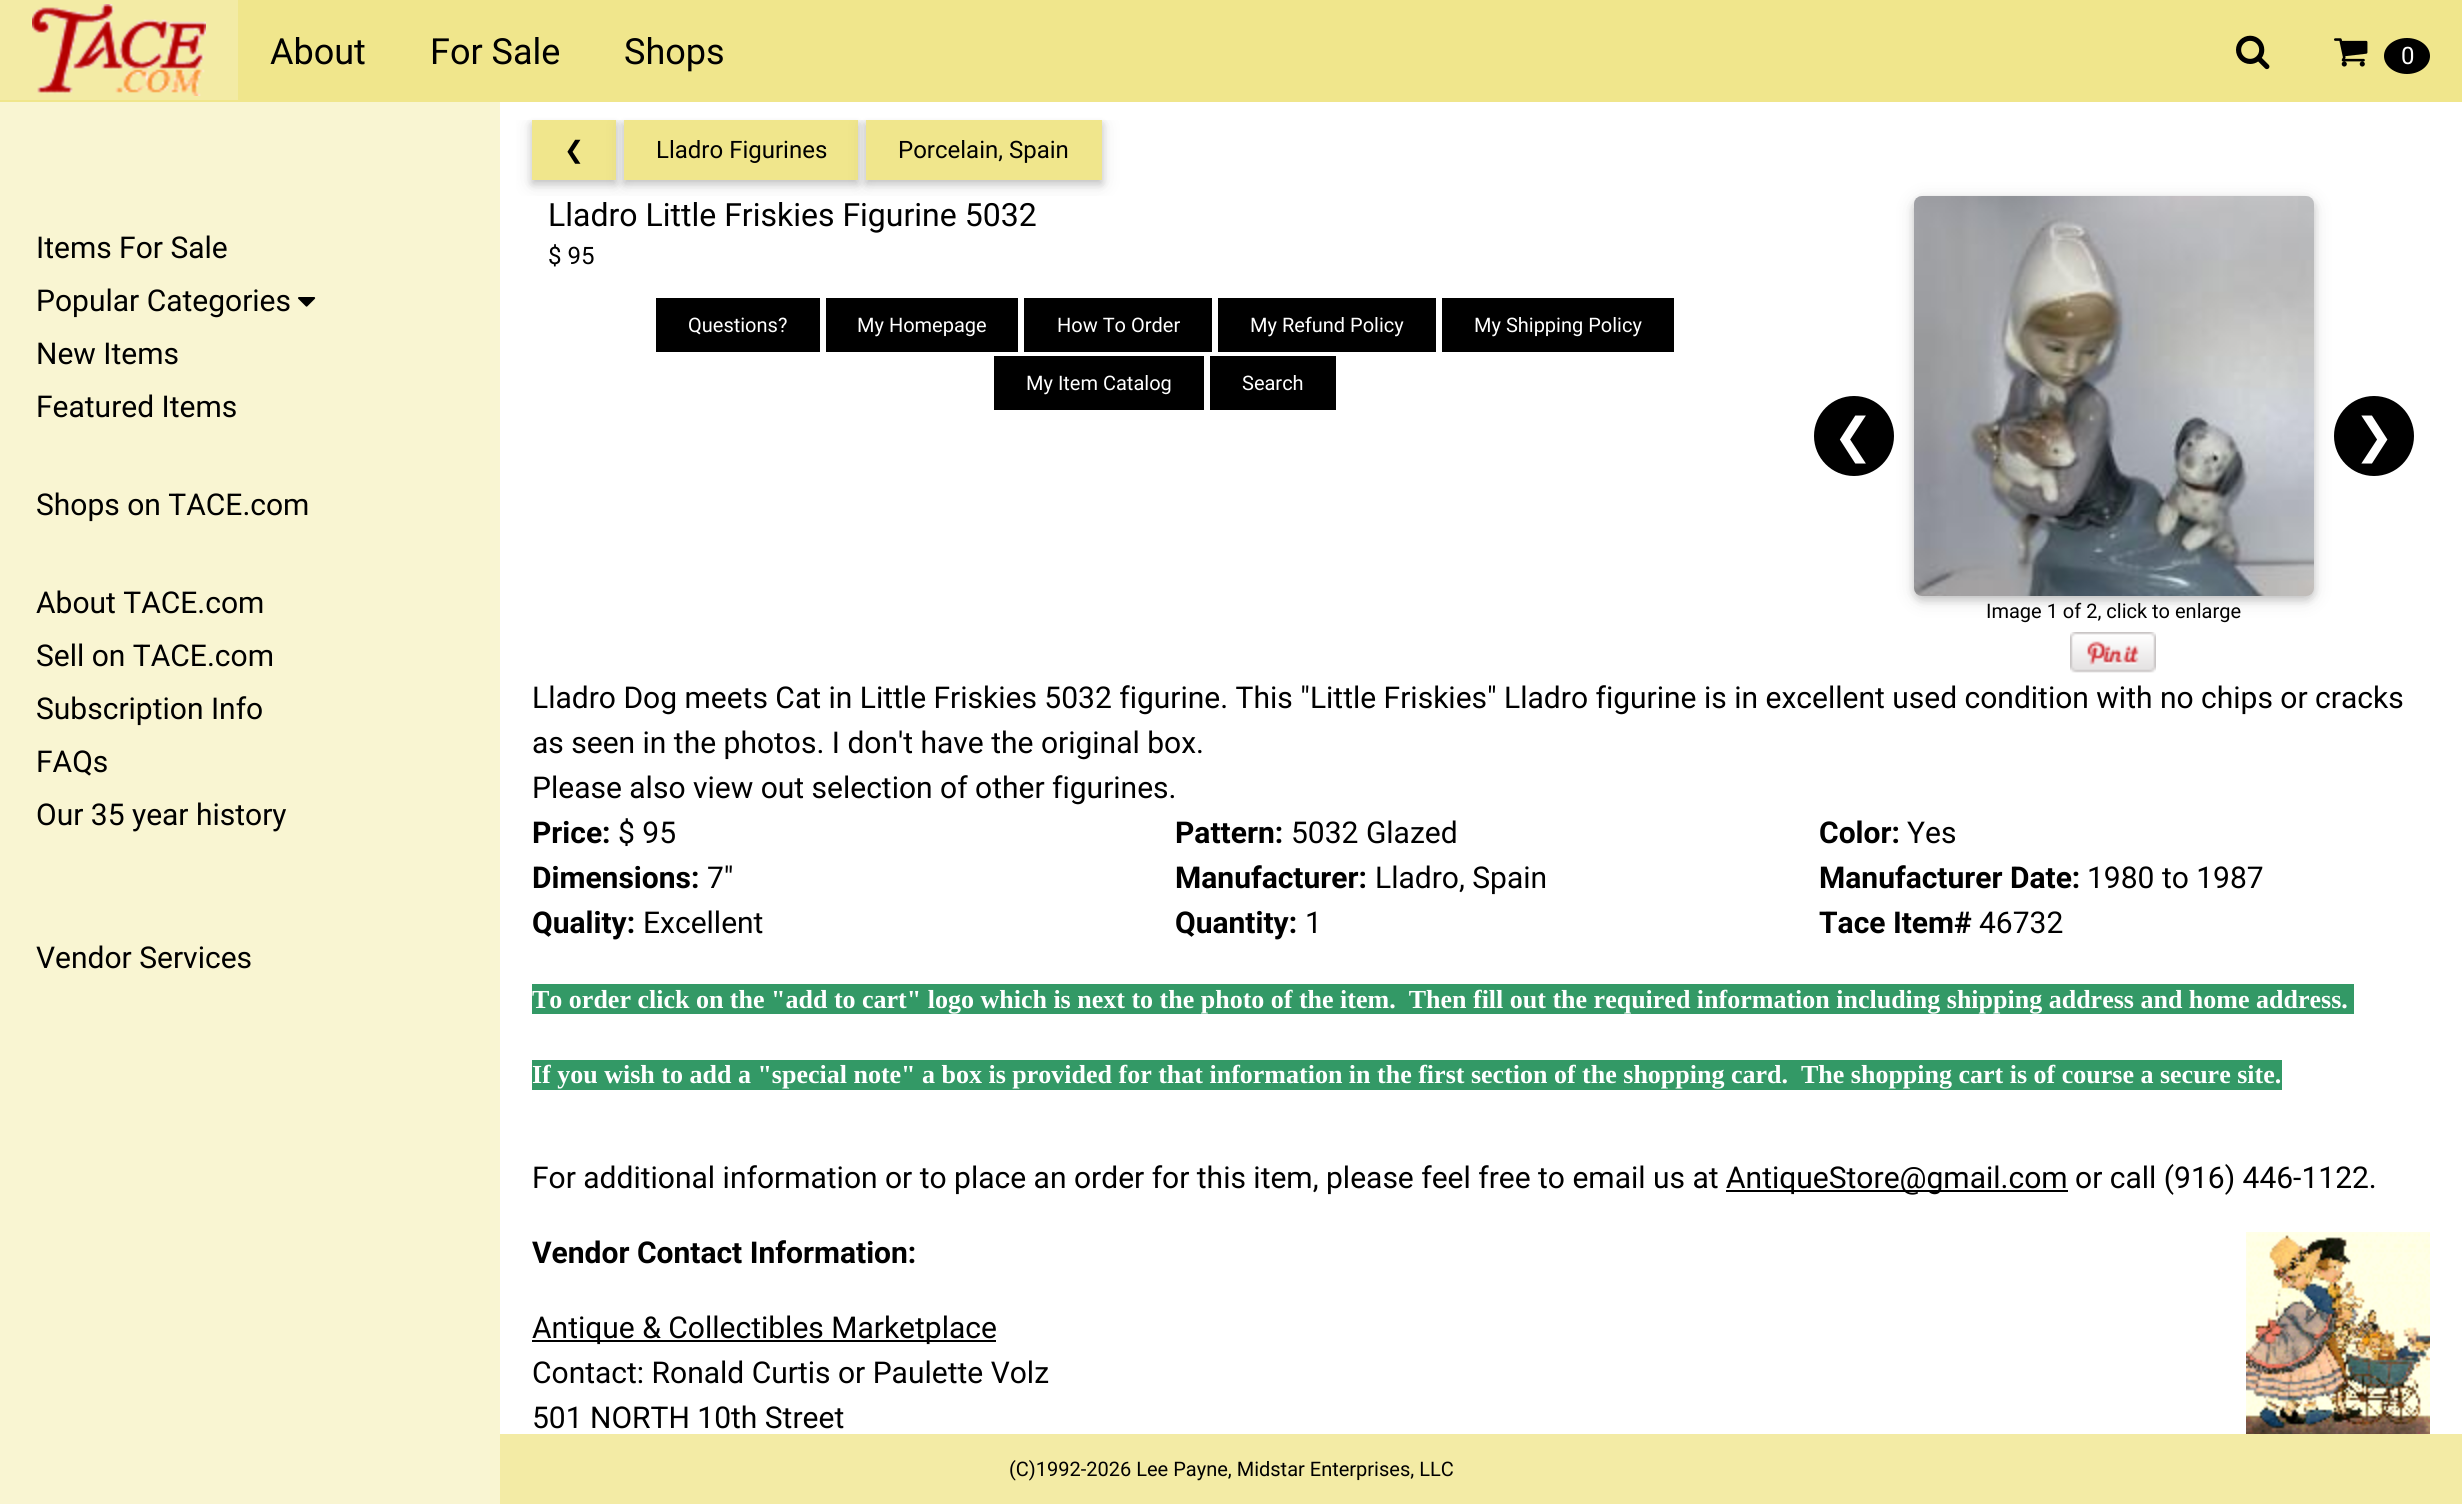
#include <cairo/cairo.h>
#include <math.h>
#include <stddef.h>

typedef struct { double x, y; const char *s; } line_t;
typedef struct { double x, y, w, h; unsigned color; } box_t;
static cairo_t *cr;

static void rgb(unsigned color)
{
	cairo_set_source_rgb(cr, (color >> 16) / 255.0, (color >> 8 & 255) / 255.0, (color & 255) / 255.0);
}

static void rrect(double x, double y, double w, double h, double r)
{
	cairo_new_sub_path(cr);
	cairo_arc(cr, x + w - r, y + h - r, r, 0, M_PI / 2);
	cairo_arc(cr, x + r, y + h - r, r, M_PI / 2, M_PI);
	cairo_arc(cr, x + r, y + r, r, M_PI, 1.5 * M_PI);
	cairo_arc(cr, x + w - r, y + r, r, 1.5 * M_PI, 2 * M_PI);
	cairo_close_path(cr);
}

static void soft_shadow(double x, double y, double w, double h, double r, double blur, double alpha)
{
	cairo_push_group_with_content(cr, CAIRO_CONTENT_ALPHA);
	cairo_set_operator(cr, CAIRO_OPERATOR_SOURCE);
	for (int i = 15; i >= -15 && fmin(w, h) + blur * i / 3 > 0; i -= 2) {
		double e = blur * i / 6;
		cairo_set_source_rgba(cr, 0, 0, 0, alpha * erfc((i - 1) / 8.5) / 2);
		rrect(x - e, y - e, w + 2 * e, h + 2 * e, fmax(0, fmin(r + e + blur * .6, fmin(w, h) / 2 + e)));
		cairo_fill(cr);
	}
	cairo_pattern_t *soft = cairo_pop_group(cr);
	cairo_mask(cr, soft);
	cairo_pattern_destroy(soft);
}

static void image(const char *path, double x, double y, double w, double h)
{
	cairo_surface_t *image = cairo_image_surface_create_from_png(path);
	cairo_save(cr);
	cairo_set_source_surface(cr, image, x, y);
	cairo_rectangle(cr, x, y, w, h);
	cairo_fill(cr);
	cairo_restore(cr);
	cairo_surface_destroy(image);
}

int main(void) {
	cairo_surface_t *surface = cairo_image_surface_create(CAIRO_FORMAT_RGB24, 2462, 1504);
	cr = cairo_create(surface);
	cairo_font_options_t *options = cairo_font_options_create();
	cairo_font_options_set_hint_metrics(options, CAIRO_HINT_METRICS_OFF);
	cairo_font_options_set_hint_style(options, CAIRO_HINT_STYLE_NONE);
	cairo_set_font_options(cr, options);
	cairo_set_miter_limit(cr, 4);
	rgb(0xffffff);
	cairo_paint(cr);
	cairo_save(cr);
	cairo_rectangle(cr, 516, 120, 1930, 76);
	cairo_clip(cr);
	rgb(0x000000);
	soft_shadow(532, 124, 84, 60, 0, 10, 0.12);
	cairo_restore(cr);
	rgb(0x000000);
	soft_shadow(532, 124, 84, 60, 0, 4, 0.16);
	rgb(0xf0e68c);
	cairo_rectangle(cr, 532, 120, 84, 60);
	cairo_fill(cr);
	cairo_save(cr);
	cairo_rectangle(cr, 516, 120, 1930, 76);
	cairo_clip(cr);
	rgb(0x000000);
	soft_shadow(624, 124, 234, 60, 0, 10, 0.12);
	cairo_restore(cr);
	rgb(0x000000);
	soft_shadow(624, 124, 234, 60, 0, 4, 0.16);
	rgb(0xf0e68c);
	cairo_rectangle(cr, 624, 120, 234, 60);
	cairo_fill(cr);
	cairo_save(cr);
	cairo_rectangle(cr, 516, 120, 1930, 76);
	cairo_clip(cr);
	rgb(0x000000);
	soft_shadow(866, 124, 236, 60, 0, 10, 0.12);
	cairo_restore(cr);
	cairo_rectangle(cr, 0, 0, 2462, 102);
	cairo_fill(cr);
	rgb(0xf3eba5);
	cairo_rectangle(cr, 0, 0, 238, 100);
	cairo_fill(cr);
	image("img/1.png", 32, 4, 174, 92);
	image("img/2.png", 2236, 35, 34, 35);
	image("img/3.png", 2334, 38, 34, 29);
	rgb(0x000000);
	cairo_new_path(cr);
	cairo_move_to(cr, 2407, 38);
	cairo_curve_to(cr, 2419.5, 38, 2430, 46, 2430, 56);
	cairo_curve_to(cr, 2430, 66, 2419.5, 74, 2407, 74);
	cairo_curve_to(cr, 2394.5, 74, 2384, 66, 2384, 56);
	cairo_curve_to(cr, 2384, 46, 2394.5, 38, 2407, 38);
	cairo_close_path(cr);
	cairo_fill(cr);
	rgb(0xf9f5d2);
	cairo_rectangle(cr, 0, 102, 500, 1402);
	cairo_fill(cr);
	image("img/4.png", 298, 297, 18, 10);
	rgb(0x000000);
	soft_shadow(866, 124, 236, 60, 0, 4, 0.16);
	{
		static const box_t items[] = {
			{866, 120, 236, 60, 0xf0e68c},
			{656, 298, 164, 54, 0x000000},
			{826, 298, 192, 54, 0x000000},
			{1024, 298, 188, 54, 0x000000},
			{1218, 298, 218, 54, 0x000000},
			{1442, 298, 232, 54, 0x000000},
			{994, 356, 210, 54, 0x000000},
			{1210, 356, 126, 54, 0x000000},
		};
		for (size_t i = 0; i < sizeof items / sizeof *items; i++) {
			rgb(items[i].color);
			cairo_rectangle(cr, items[i].x, items[i].y, items[i].w, items[i].h);
			cairo_fill(cr);
		}
	}
	rgb(0x000000);
	soft_shadow(1914, 200, 400, 400, 8, 10, 0.12);
	rgb(0x000000);
	cairo_arc(cr, 1854, 436, 40, 0, 2 * M_PI);
	cairo_fill(cr);
	rgb(0x000000);
	soft_shadow(1914, 200, 400, 400, 8, 4, 0.16);
	image("img/5.png", 1914, 196, 400, 400);
	rgb(0x000000);
	cairo_arc(cr, 2374, 436, 40, 0, 2 * M_PI);
	cairo_fill(cr);
	image("img/6.png", 2070, 632, 86, 41);
	{
		static const box_t items[] = {
			{532, 984, 1822, 30, 0x339966},
			{532, 1060, 1750, 30, 0x339966},
			{1726, 1190, 342, 2, 0x000000},
		};
		for (size_t i = 0; i < sizeof items / sizeof *items; i++) {
			rgb(items[i].color);
			cairo_rectangle(cr, items[i].x, items[i].y, items[i].w, items[i].h);
			cairo_fill(cr);
		}
	}
	image("img/7.png", 2246, 1232, 184, 202);
	cairo_rectangle(cr, 532, 1340, 464, 2);
	cairo_fill(cr);
	rgb(0xf3eba5);
	cairo_rectangle(cr, 500, 1434, 1962, 70);
	cairo_fill(cr);
	cairo_select_font_face(cr, "Roboto", CAIRO_FONT_SLANT_NORMAL, CAIRO_FONT_WEIGHT_NORMAL);
	cairo_set_font_size(cr, 36);
	rgb(0x000000);
	{
		static const line_t items[] = {
			{270, 64, "About"},
			{430, 64, "For Sale"},
			{624, 64, "Shops"},
		};
		for (size_t i = 0; i < sizeof items / sizeof *items; i++) {
			cairo_move_to(cr, items[i].x, items[i].y);
			cairo_show_text(cr, items[i].s);
		}
	}
	cairo_set_font_size(cr, 24);
	rgb(0xffffff);
	cairo_move_to(cr, 2401, 64);
	cairo_show_text(cr, "0");
	cairo_set_font_size(cr, 30);
	rgb(0x000000);
	{
		static const line_t items[] = {
			{36, 258, "Items For Sale"},
			{36, 311, "Popular Categories"},
			{36, 364, "New Items"},
			{36, 417, "Featured Items"},
			{36, 515, "Shops on TACE.com"},
			{36, 613, "About TACE.com"},
			{36, 666, "Sell on TACE.com"},
			{36, 719, "Subscription Info"},
			{36, 772, "FAQs"},
			{36, 825, "Our 35 year history"},
			{36, 968, "Vendor Services"},
		};
		for (size_t i = 0; i < sizeof items / sizeof *items; i++) {
			cairo_move_to(cr, items[i].x, items[i].y);
			cairo_show_text(cr, items[i].s);
		}
	}
	cairo_select_font_face(cr, "DejaVu Sans", CAIRO_FONT_SLANT_NORMAL, CAIRO_FONT_WEIGHT_NORMAL);
	cairo_set_font_size(cr, 24);
	cairo_move_to(cr, 564, 158);
	cairo_show_text(cr, "❮");
	cairo_select_font_face(cr, "Roboto", CAIRO_FONT_SLANT_NORMAL, CAIRO_FONT_WEIGHT_NORMAL);
	cairo_move_to(cr, 656, 158);
	cairo_show_text(cr, "Lladro Figurines");
	cairo_move_to(cr, 898, 158);
	cairo_show_text(cr, "Porcelain, Spain");
	cairo_set_font_size(cr, 32);
	cairo_move_to(cr, 548, 226);
	cairo_show_text(cr, "Lladro Little Friskies Figurine 5032");
	cairo_set_font_size(cr, 24);
	cairo_move_to(cr, 548, 264);
	cairo_show_text(cr, "$ 95");
	cairo_set_font_size(cr, 20);
	rgb(0xffffff);
	{
		static const line_t items[] = {
			{688, 332, "Questions?"},
			{857, 332, "My Homepage"},
			{1057, 332, "How To Order"},
			{1250, 332, "My Refund Policy"},
			{1474, 332, "My Shipping Policy"},
			{1026, 390, "My Item Catalog"},
			{1242, 390, "Search"},
		};
		for (size_t i = 0; i < sizeof items / sizeof *items; i++) {
			cairo_move_to(cr, items[i].x, items[i].y);
			cairo_show_text(cr, items[i].s);
		}
	}
	cairo_select_font_face(cr, "DejaVu Sans", CAIRO_FONT_SLANT_NORMAL, CAIRO_FONT_WEIGHT_NORMAL);
	cairo_set_font_size(cr, 48);
	cairo_move_to(cr, 1833, 452);
	cairo_show_text(cr, "❮");
	cairo_move_to(cr, 2354, 452);
	cairo_show_text(cr, "❯");
	cairo_select_font_face(cr, "Roboto", CAIRO_FONT_SLANT_NORMAL, CAIRO_FONT_WEIGHT_NORMAL);
	cairo_set_font_size(cr, 20);
	rgb(0x000000);
	cairo_move_to(cr, 1986, 618);
	cairo_show_text(cr, "Image 1 of 2, click to enlarge");
	cairo_set_font_size(cr, 30);
	{
		static const line_t items[] = {
			{532, 708, "Lladro Dog meets Cat in Little Friskies 5032 figurine. This \"Little Friskies\" Lladro figurine is in excellent used condition with no chips or cracks"},
			{532, 753, "as seen in the photos. I don't have the original box."},
			{532, 798, "Please also view out selection of other figurines."},
		};
		for (size_t i = 0; i < sizeof items / sizeof *items; i++) {
			cairo_move_to(cr, items[i].x, items[i].y);
			cairo_show_text(cr, items[i].s);
		}
	}
	cairo_select_font_face(cr, "Roboto", CAIRO_FONT_SLANT_NORMAL, CAIRO_FONT_WEIGHT_BOLD);
	cairo_move_to(cr, 532, 843);
	cairo_show_text(cr, "Price:");
	cairo_select_font_face(cr, "Roboto", CAIRO_FONT_SLANT_NORMAL, CAIRO_FONT_WEIGHT_NORMAL);
	cairo_move_to(cr, 618, 843);
	cairo_show_text(cr, "$ 95");
	cairo_select_font_face(cr, "Roboto", CAIRO_FONT_SLANT_NORMAL, CAIRO_FONT_WEIGHT_BOLD);
	cairo_move_to(cr, 1175, 843);
	cairo_show_text(cr, "Pattern:");
	cairo_select_font_face(cr, "Roboto", CAIRO_FONT_SLANT_NORMAL, CAIRO_FONT_WEIGHT_NORMAL);
	cairo_move_to(cr, 1291, 843);
	cairo_show_text(cr, "5032 Glazed");
	cairo_select_font_face(cr, "Roboto", CAIRO_FONT_SLANT_NORMAL, CAIRO_FONT_WEIGHT_BOLD);
	cairo_move_to(cr, 1819, 843);
	cairo_show_text(cr, "Color:");
	cairo_select_font_face(cr, "Roboto", CAIRO_FONT_SLANT_NORMAL, CAIRO_FONT_WEIGHT_NORMAL);
	cairo_move_to(cr, 1907, 843);
	cairo_show_text(cr, "Yes");
	cairo_select_font_face(cr, "Roboto", CAIRO_FONT_SLANT_NORMAL, CAIRO_FONT_WEIGHT_BOLD);
	cairo_move_to(cr, 532, 888);
	cairo_show_text(cr, "Dimensions:");
	cairo_select_font_face(cr, "Roboto", CAIRO_FONT_SLANT_NORMAL, CAIRO_FONT_WEIGHT_NORMAL);
	cairo_move_to(cr, 707, 888);
	cairo_show_text(cr, "7\"");
	cairo_select_font_face(cr, "Roboto", CAIRO_FONT_SLANT_NORMAL, CAIRO_FONT_WEIGHT_BOLD);
	cairo_move_to(cr, 1175, 888);
	cairo_show_text(cr, "Manufacturer:");
	cairo_select_font_face(cr, "Roboto", CAIRO_FONT_SLANT_NORMAL, CAIRO_FONT_WEIGHT_NORMAL);
	cairo_move_to(cr, 1375, 888);
	cairo_show_text(cr, "Lladro, Spain");
	cairo_select_font_face(cr, "Roboto", CAIRO_FONT_SLANT_NORMAL, CAIRO_FONT_WEIGHT_BOLD);
	cairo_move_to(cr, 1819, 888);
	cairo_show_text(cr, "Manufacturer Date:");
	cairo_select_font_face(cr, "Roboto", CAIRO_FONT_SLANT_NORMAL, CAIRO_FONT_WEIGHT_NORMAL);
	cairo_move_to(cr, 2087, 888);
	cairo_show_text(cr, "1980 to 1987");
	cairo_select_font_face(cr, "Roboto", CAIRO_FONT_SLANT_NORMAL, CAIRO_FONT_WEIGHT_BOLD);
	cairo_move_to(cr, 532, 933);
	cairo_show_text(cr, "Quality:");
	cairo_select_font_face(cr, "Roboto", CAIRO_FONT_SLANT_NORMAL, CAIRO_FONT_WEIGHT_NORMAL);
	cairo_move_to(cr, 643, 933);
	cairo_show_text(cr, "Excellent");
	cairo_select_font_face(cr, "Roboto", CAIRO_FONT_SLANT_NORMAL, CAIRO_FONT_WEIGHT_BOLD);
	cairo_move_to(cr, 1175, 933);
	cairo_show_text(cr, "Quantity:");
	cairo_select_font_face(cr, "Roboto", CAIRO_FONT_SLANT_NORMAL, CAIRO_FONT_WEIGHT_NORMAL);
	cairo_move_to(cr, 1305, 933);
	cairo_show_text(cr, "1");
	cairo_select_font_face(cr, "Roboto", CAIRO_FONT_SLANT_NORMAL, CAIRO_FONT_WEIGHT_BOLD);
	cairo_move_to(cr, 1819, 933);
	cairo_show_text(cr, "Tace Item#");
	cairo_select_font_face(cr, "Roboto", CAIRO_FONT_SLANT_NORMAL, CAIRO_FONT_WEIGHT_NORMAL);
	cairo_move_to(cr, 1979, 933);
	cairo_show_text(cr, "46732");
	cairo_select_font_face(cr, "Liberation Serif", CAIRO_FONT_SLANT_NORMAL, CAIRO_FONT_WEIGHT_BOLD);
	cairo_set_font_size(cr, 26);
	rgb(0xffffff);
	cairo_move_to(cr, 532, 1008);
	cairo_show_text(cr, "To order click on the \"add to cart\" logo which is next to the photo of the item.  Then fill out the required information including shipping address and home address.");
	cairo_move_to(cr, 532, 1083);
	cairo_show_text(cr, "If you wish to add a \"special note\" a box is provided for that information in the first section of the shopping card.  The shopping cart is of course a secure site.");
	cairo_select_font_face(cr, "Roboto", CAIRO_FONT_SLANT_NORMAL, CAIRO_FONT_WEIGHT_NORMAL);
	cairo_set_font_size(cr, 30);
	rgb(0x000000);
	cairo_move_to(cr, 532, 1188);
	cairo_show_text(cr, "For additional information or to place an order for this item, please feel free to email us at");
	cairo_move_to(cr, 1726, 1188);
	cairo_show_text(cr, "AntiqueStore@gmail.com or call (916) 446-1122.");
	cairo_select_font_face(cr, "Roboto", CAIRO_FONT_SLANT_NORMAL, CAIRO_FONT_WEIGHT_BOLD);
	cairo_move_to(cr, 532, 1263);
	cairo_show_text(cr, "Vendor Contact Information:");
	cairo_select_font_face(cr, "Roboto", CAIRO_FONT_SLANT_NORMAL, CAIRO_FONT_WEIGHT_NORMAL);
	{
		static const line_t items[] = {
			{532, 1338, "Antique & Collectibles Marketplace"},
			{532, 1383, "Contact: Ronald Curtis or Paulette Volz"},
			{532, 1428, "501 NORTH 10th Street"},
		};
		for (size_t i = 0; i < sizeof items / sizeof *items; i++) {
			cairo_move_to(cr, items[i].x, items[i].y);
			cairo_show_text(cr, items[i].s);
		}
	}
	cairo_set_font_size(cr, 20);
	cairo_move_to(cr, 1009, 1476);
	cairo_show_text(cr, "(C)1992-2026 Lee Payne, Midstar Enterprises, LLC");
	cairo_surface_write_to_png(surface, "page.png");
	cairo_font_options_destroy(options);
	cairo_destroy(cr);
	cairo_surface_destroy(surface);
	return 0;
}
